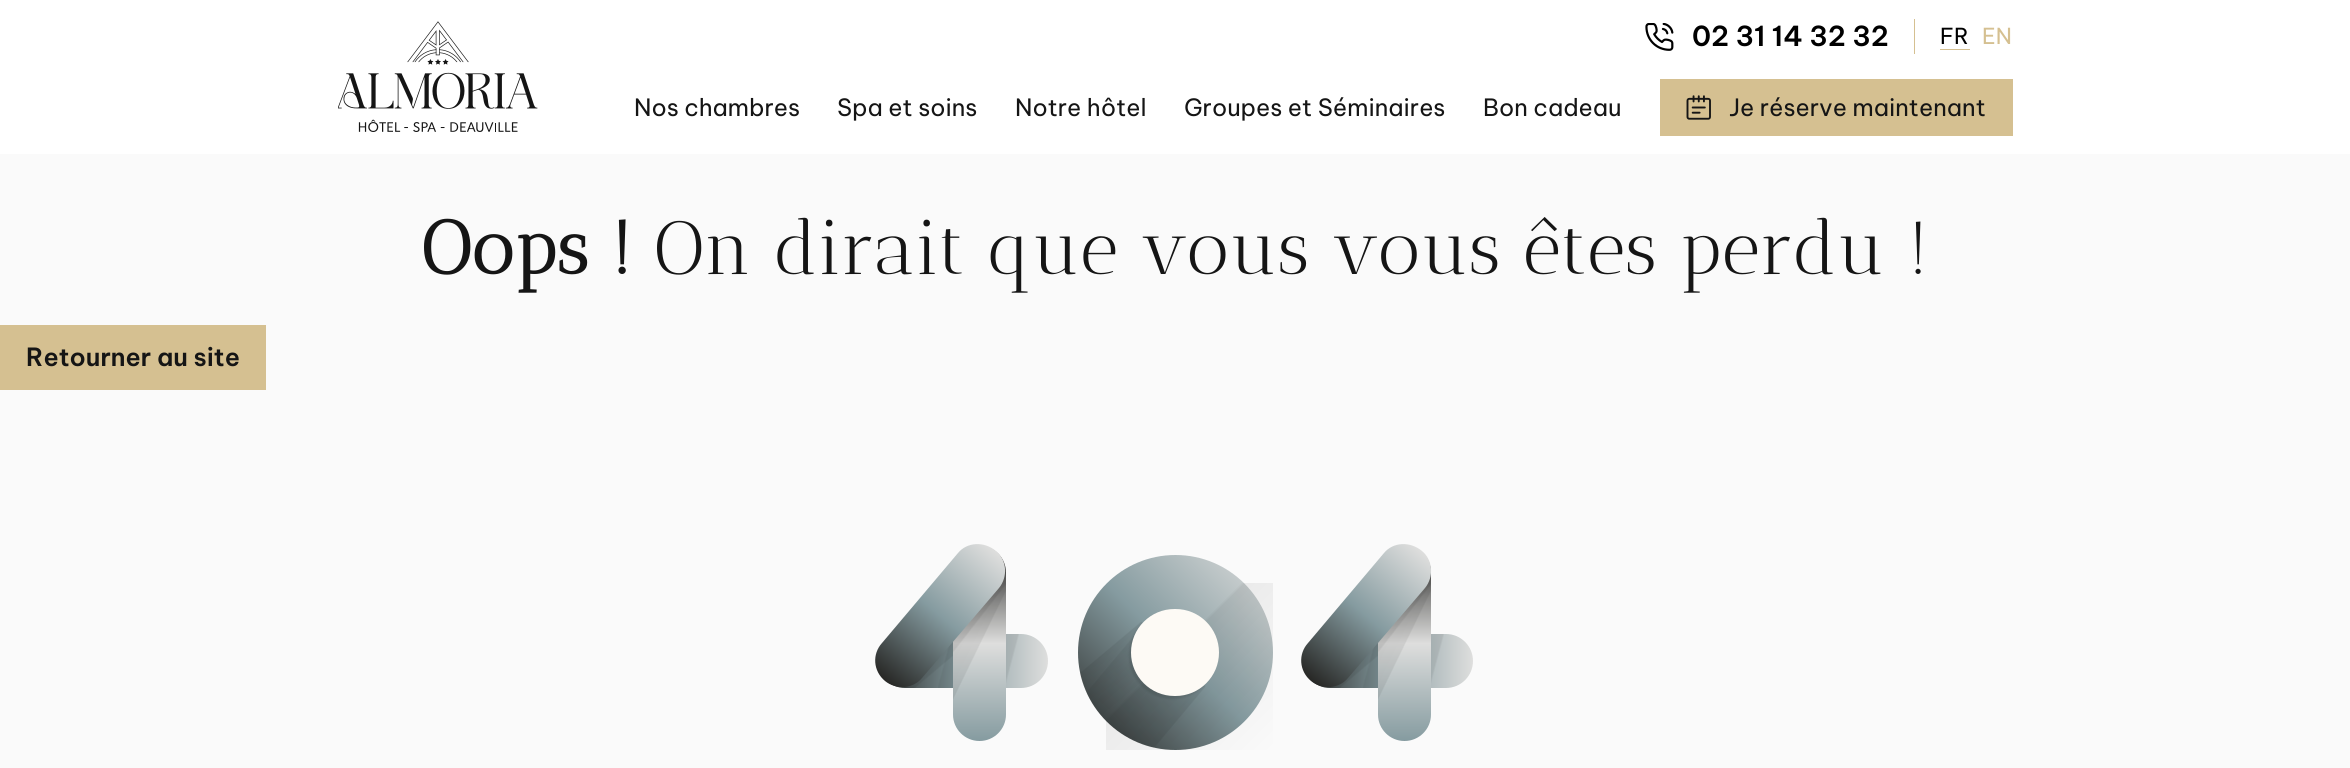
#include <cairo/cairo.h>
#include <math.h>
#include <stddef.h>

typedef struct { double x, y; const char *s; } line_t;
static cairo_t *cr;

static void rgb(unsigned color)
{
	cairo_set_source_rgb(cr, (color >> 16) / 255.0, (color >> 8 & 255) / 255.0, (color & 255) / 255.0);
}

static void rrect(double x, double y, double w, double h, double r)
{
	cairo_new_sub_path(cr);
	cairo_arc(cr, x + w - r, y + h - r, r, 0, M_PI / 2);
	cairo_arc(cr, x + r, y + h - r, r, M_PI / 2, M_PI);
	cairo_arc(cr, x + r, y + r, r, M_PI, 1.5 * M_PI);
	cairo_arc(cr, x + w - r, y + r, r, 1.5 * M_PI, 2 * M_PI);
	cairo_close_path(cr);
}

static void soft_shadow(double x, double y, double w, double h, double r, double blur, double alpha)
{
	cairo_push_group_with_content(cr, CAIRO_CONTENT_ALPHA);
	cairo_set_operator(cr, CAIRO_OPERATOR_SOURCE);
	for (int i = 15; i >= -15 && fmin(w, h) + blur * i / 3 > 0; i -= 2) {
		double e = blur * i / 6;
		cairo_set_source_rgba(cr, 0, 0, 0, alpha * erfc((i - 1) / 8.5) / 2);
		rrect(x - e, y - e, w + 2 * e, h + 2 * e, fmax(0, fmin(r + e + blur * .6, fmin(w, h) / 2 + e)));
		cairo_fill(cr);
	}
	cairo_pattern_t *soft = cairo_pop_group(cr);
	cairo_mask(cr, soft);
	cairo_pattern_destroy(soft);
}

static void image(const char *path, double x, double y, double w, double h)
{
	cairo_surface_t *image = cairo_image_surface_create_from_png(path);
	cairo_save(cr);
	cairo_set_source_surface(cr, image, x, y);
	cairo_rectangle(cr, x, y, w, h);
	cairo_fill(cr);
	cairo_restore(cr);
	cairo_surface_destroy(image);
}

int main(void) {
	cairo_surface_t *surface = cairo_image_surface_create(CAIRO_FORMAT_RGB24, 2350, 768);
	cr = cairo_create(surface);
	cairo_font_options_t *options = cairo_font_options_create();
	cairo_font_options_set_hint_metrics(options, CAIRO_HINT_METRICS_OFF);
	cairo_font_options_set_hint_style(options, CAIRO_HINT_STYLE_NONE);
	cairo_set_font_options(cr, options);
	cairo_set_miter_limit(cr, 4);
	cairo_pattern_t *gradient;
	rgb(0xfafafa);
	cairo_paint(cr);
	rgb(0xffffff);
	cairo_rectangle(cr, 0, 0, 2350, 154);
	cairo_fill(cr);
	image("img/1.png", 338, 21, 200, 111);
	rgb(0xd5c091);
	cairo_rectangle(cr, 1914, 19, 1, 35);
	cairo_fill(cr);
	image("img/2.png", 1645, 23, 29, 28);
	cairo_rectangle(cr, 1940, 49, 30, 1);
	cairo_fill(cr);
	cairo_rectangle(cr, 1660, 79, 353, 57);
	cairo_fill(cr);
	image("img/3.png", 1686, 95, 25, 25);
	cairo_rectangle(cr, 0, 325, 266, 65);
	cairo_fill(cr);
	gradient = cairo_pattern_create_linear(878, 661, 1048, 661);
	cairo_pattern_add_color_stop_rgba(gradient, 0, 0.153, 0.153, 0.145, 1);
	cairo_pattern_add_color_stop_rgba(gradient, 0.5, 0.522, 0.608, 0.627, 1);
	cairo_pattern_add_color_stop_rgba(gradient, 1, 0.871, 0.871, 0.867, 1);
	cairo_set_source(cr, gradient);
	cairo_pattern_destroy(gradient);
	rrect(878, 634, 170, 54, 27);
	cairo_fill(cr);
	gradient = cairo_pattern_create_linear(876, 638, 1049, 684);
	cairo_pattern_add_color_stop_rgba(gradient, 0, 0, 0, 0, 0);
	cairo_pattern_add_color_stop_rgba(gradient, 0.4, 0, 0, 0, 0);
	cairo_pattern_add_color_stop_rgba(gradient, 0.41, 0, 0, 0, 0.06);
	cairo_pattern_add_color_stop_rgba(gradient, 0.76, 0, 0, 0, 0.07);
	cairo_pattern_add_color_stop_rgba(gradient, 0.77, 0, 0, 0, 0);
	cairo_pattern_add_color_stop_rgba(gradient, 1, 0, 0, 0, 0);
	cairo_set_source(cr, gradient);
	cairo_pattern_destroy(gradient);
	cairo_rectangle(cr, 938, 634, 81, 54);
	cairo_fill(cr);
	gradient = cairo_pattern_create_linear(914, 603, 1011, 718);
	cairo_pattern_add_color_stop_rgba(gradient, 0, 0, 0, 0, 0.1);
	cairo_pattern_add_color_stop_rgba(gradient, 0.43, 0, 0, 0, 0.07);
	cairo_pattern_add_color_stop_rgba(gradient, 0.44, 0, 0, 0, 0);
	cairo_pattern_add_color_stop_rgba(gradient, 1, 0, 0, 0, 0);
	cairo_set_source(cr, gradient);
	cairo_pattern_destroy(gradient);
	rrect(878, 634, 170, 54, 27);
	cairo_fill(cr);
	gradient = cairo_pattern_create_linear(979, 741, 979, 546);
	cairo_pattern_add_color_stop_rgba(gradient, 0, 0.522, 0.608, 0.627, 1);
	cairo_pattern_add_color_stop_rgba(gradient, 0.5, 0.871, 0.871, 0.867, 1);
	cairo_pattern_add_color_stop_rgba(gradient, 1, 0.153, 0.153, 0.145, 1);
	cairo_set_source(cr, gradient);
	cairo_pattern_destroy(gradient);
	rrect(953, 546, 53, 195, 26.5);
	cairo_fill(cr);
	gradient = cairo_pattern_create_linear(919, 614, 1040, 673);
	cairo_pattern_add_color_stop_rgba(gradient, 0, 0, 0, 0, 0.1);
	cairo_pattern_add_color_stop_rgba(gradient, 0.5, 0, 0, 0, 0.07);
	cairo_pattern_add_color_stop_rgba(gradient, 0.51, 0, 0, 0, 0);
	cairo_pattern_add_color_stop_rgba(gradient, 1, 0, 0, 0, 0);
	cairo_set_source(cr, gradient);
	cairo_pattern_destroy(gradient);
	rrect(953, 546, 53, 195, 26.5);
	cairo_fill(cr);
	gradient = cairo_pattern_create_linear(915, 594, 1043, 694);
	cairo_pattern_add_color_stop_rgba(gradient, 0, 0, 0, 0, 0.1);
	cairo_pattern_add_color_stop_rgba(gradient, 0.4, 0, 0, 0, 0.07);
	cairo_pattern_add_color_stop_rgba(gradient, 0.41, 0, 0, 0, 0);
	cairo_pattern_add_color_stop_rgba(gradient, 1, 0, 0, 0, 0);
	cairo_set_source(cr, gradient);
	cairo_pattern_destroy(gradient);
	rrect(953, 546, 53, 195, 26.5);
	cairo_fill(cr);
	gradient = cairo_pattern_create_linear(885, 681, 996, 551);
	cairo_pattern_add_color_stop_rgba(gradient, 0, 0.153, 0.153, 0.145, 1);
	cairo_pattern_add_color_stop_rgba(gradient, 0.5, 0.522, 0.608, 0.627, 1);
	cairo_pattern_add_color_stop_rgba(gradient, 1, 0.871, 0.871, 0.867, 1);
	cairo_set_source(cr, gradient);
	cairo_pattern_destroy(gradient);
	cairo_new_path(cr);
	cairo_move_to(cr, 882, 643);
	cairo_line_to(cr, 958, 553);
	cairo_curve_to(cr, 967, 542, 984, 541, 996, 551);
	cairo_curve_to(cr, 1007, 560, 1008, 577, 999, 588);
	cairo_line_to(cr, 922, 678);
	cairo_curve_to(cr, 913, 689, 896, 690, 885, 681);
	cairo_curve_to(cr, 873, 671, 872, 654, 882, 643);
	cairo_close_path(cr);
	cairo_fill(cr);
	gradient = cairo_pattern_create_linear(1078, 750, 1273, 555);
	cairo_pattern_add_color_stop_rgba(gradient, 0, 0.153, 0.153, 0.145, 1);
	cairo_pattern_add_color_stop_rgba(gradient, 0.5, 0.522, 0.608, 0.627, 1);
	cairo_pattern_add_color_stop_rgba(gradient, 1, 0.871, 0.871, 0.867, 1);
	cairo_set_source(cr, gradient);
	cairo_pattern_destroy(gradient);
	cairo_arc(cr, 1175.5, 652.5, 97.5, 0, 2 * M_PI);
	cairo_fill(cr);
	gradient = cairo_pattern_create_linear(1273, 750, 1078, 555);
	cairo_pattern_add_color_stop_rgba(gradient, 0, 0, 0, 0, 0);
	cairo_pattern_add_color_stop_rgba(gradient, 0.5, 0, 0, 0, 0.06);
	cairo_pattern_add_color_stop_rgba(gradient, 0.51, 0, 0, 0, 0);
	cairo_pattern_add_color_stop_rgba(gradient, 1, 0, 0, 0, 0);
	cairo_set_source(cr, gradient);
	cairo_pattern_destroy(gradient);
	cairo_rectangle(cr, 1106, 583, 167, 167);
	cairo_fill(cr);
	gradient = cairo_pattern_create_linear(1087, 655, 1180, 733);
	cairo_pattern_add_color_stop_rgba(gradient, 0, 0, 0, 0, 0);
	cairo_pattern_add_color_stop_rgba(gradient, 0.19, 0, 0, 0, 0);
	cairo_pattern_add_color_stop_rgba(gradient, 0.2, 0, 0, 0, 0.05);
	cairo_pattern_add_color_stop_rgba(gradient, 0.91, 0, 0, 0, 0.07);
	cairo_pattern_add_color_stop_rgba(gradient, 0.92, 0, 0, 0, 0);
	cairo_pattern_add_color_stop_rgba(gradient, 1, 0, 0, 0, 0);
	cairo_set_source(cr, gradient);
	cairo_pattern_destroy(gradient);
	cairo_new_path(cr);
	cairo_move_to(cr, 1134, 614);
	cairo_line_to(cr, 1213, 694);
	cairo_line_to(cr, 1158, 749);
	cairo_curve_to(cr, 1118, 741, 1086, 709, 1079, 669);
	cairo_close_path(cr);
	cairo_fill(cr);
	gradient = cairo_pattern_create_linear(1095, 647, 1173, 740);
	cairo_pattern_add_color_stop_rgba(gradient, 0, 0, 0, 0, 0);
	cairo_pattern_add_color_stop_rgba(gradient, 0.08, 0, 0, 0, 0);
	cairo_pattern_add_color_stop_rgba(gradient, 0.09, 0, 0, 0, 0.07);
	cairo_pattern_add_color_stop_rgba(gradient, 0.5, 0, 0, 0, 0);
	cairo_pattern_add_color_stop_rgba(gradient, 1, 0, 0, 0, 0);
	cairo_set_source(cr, gradient);
	cairo_pattern_destroy(gradient);
	cairo_new_path(cr);
	cairo_move_to(cr, 1134, 614);
	cairo_line_to(cr, 1213, 694);
	cairo_line_to(cr, 1158, 749);
	cairo_curve_to(cr, 1118, 741, 1086, 709, 1079, 669);
	cairo_close_path(cr);
	cairo_fill(cr);
	rgb(0x000000);
	soft_shadow(1129, 611, 87, 88, 43.5, 1, 0.1);
	rgb(0xfdfaf5);
	rrect(1131, 609, 88, 87, 43.5);
	cairo_fill(cr);
	gradient = cairo_pattern_create_linear(1303, 661, 1473, 661);
	cairo_pattern_add_color_stop_rgba(gradient, 0, 0.153, 0.153, 0.145, 1);
	cairo_pattern_add_color_stop_rgba(gradient, 0.5, 0.522, 0.608, 0.627, 1);
	cairo_pattern_add_color_stop_rgba(gradient, 1, 0.871, 0.871, 0.867, 1);
	cairo_set_source(cr, gradient);
	cairo_pattern_destroy(gradient);
	rrect(1303, 634, 170, 54, 27);
	cairo_fill(cr);
	gradient = cairo_pattern_create_linear(1301, 638, 1474, 684);
	cairo_pattern_add_color_stop_rgba(gradient, 0, 0, 0, 0, 0);
	cairo_pattern_add_color_stop_rgba(gradient, 0.4, 0, 0, 0, 0);
	cairo_pattern_add_color_stop_rgba(gradient, 0.41, 0, 0, 0, 0.06);
	cairo_pattern_add_color_stop_rgba(gradient, 0.76, 0, 0, 0, 0.07);
	cairo_pattern_add_color_stop_rgba(gradient, 0.77, 0, 0, 0, 0);
	cairo_pattern_add_color_stop_rgba(gradient, 1, 0, 0, 0, 0);
	cairo_set_source(cr, gradient);
	cairo_pattern_destroy(gradient);
	cairo_rectangle(cr, 1363, 634, 81, 54);
	cairo_fill(cr);
	gradient = cairo_pattern_create_linear(1339, 603, 1436, 718);
	cairo_pattern_add_color_stop_rgba(gradient, 0, 0, 0, 0, 0.1);
	cairo_pattern_add_color_stop_rgba(gradient, 0.43, 0, 0, 0, 0.07);
	cairo_pattern_add_color_stop_rgba(gradient, 0.44, 0, 0, 0, 0);
	cairo_pattern_add_color_stop_rgba(gradient, 1, 0, 0, 0, 0);
	cairo_set_source(cr, gradient);
	cairo_pattern_destroy(gradient);
	rrect(1303, 634, 170, 54, 27);
	cairo_fill(cr);
	gradient = cairo_pattern_create_linear(1404, 741, 1404, 546);
	cairo_pattern_add_color_stop_rgba(gradient, 0, 0.522, 0.608, 0.627, 1);
	cairo_pattern_add_color_stop_rgba(gradient, 0.5, 0.871, 0.871, 0.867, 1);
	cairo_pattern_add_color_stop_rgba(gradient, 1, 0.153, 0.153, 0.145, 1);
	cairo_set_source(cr, gradient);
	cairo_pattern_destroy(gradient);
	rrect(1378, 546, 53, 195, 26.5);
	cairo_fill(cr);
	gradient = cairo_pattern_create_linear(1344, 614, 1465, 673);
	cairo_pattern_add_color_stop_rgba(gradient, 0, 0, 0, 0, 0.1);
	cairo_pattern_add_color_stop_rgba(gradient, 0.5, 0, 0, 0, 0.07);
	cairo_pattern_add_color_stop_rgba(gradient, 0.51, 0, 0, 0, 0);
	cairo_pattern_add_color_stop_rgba(gradient, 1, 0, 0, 0, 0);
	cairo_set_source(cr, gradient);
	cairo_pattern_destroy(gradient);
	rrect(1378, 546, 53, 195, 26.5);
	cairo_fill(cr);
	gradient = cairo_pattern_create_linear(1340, 594, 1468, 694);
	cairo_pattern_add_color_stop_rgba(gradient, 0, 0, 0, 0, 0.1);
	cairo_pattern_add_color_stop_rgba(gradient, 0.4, 0, 0, 0, 0.07);
	cairo_pattern_add_color_stop_rgba(gradient, 0.41, 0, 0, 0, 0);
	cairo_pattern_add_color_stop_rgba(gradient, 1, 0, 0, 0, 0);
	cairo_set_source(cr, gradient);
	cairo_pattern_destroy(gradient);
	rrect(1378, 546, 53, 195, 26.5);
	cairo_fill(cr);
	gradient = cairo_pattern_create_linear(1311, 681, 1422, 551);
	cairo_pattern_add_color_stop_rgba(gradient, 0, 0.153, 0.153, 0.145, 1);
	cairo_pattern_add_color_stop_rgba(gradient, 0.5, 0.522, 0.608, 0.627, 1);
	cairo_pattern_add_color_stop_rgba(gradient, 1, 0.871, 0.871, 0.867, 1);
	cairo_set_source(cr, gradient);
	cairo_pattern_destroy(gradient);
	cairo_new_path(cr);
	cairo_move_to(cr, 1308, 643);
	cairo_line_to(cr, 1384, 553);
	cairo_curve_to(cr, 1393, 542, 1410, 541, 1422, 551);
	cairo_curve_to(cr, 1433, 560, 1434, 577, 1425, 588);
	cairo_line_to(cr, 1348, 678);
	cairo_curve_to(cr, 1339, 689, 1322, 690, 1311, 681);
	cairo_curve_to(cr, 1299, 671, 1298, 654, 1308, 643);
	cairo_close_path(cr);
	cairo_fill(cr);
	cairo_select_font_face(cr, "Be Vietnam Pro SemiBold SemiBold", CAIRO_FONT_SLANT_NORMAL, CAIRO_FONT_WEIGHT_NORMAL);
	cairo_set_font_size(cr, 27.5);
	rgb(0x000000);
	cairo_move_to(cr, 1692, 46);
	cairo_show_text(cr, "02 31 14 32 32");
	cairo_select_font_face(cr, "Be Vietnam Pro", CAIRO_FONT_SLANT_NORMAL, CAIRO_FONT_WEIGHT_NORMAL);
	cairo_set_font_size(cr, 22);
	cairo_move_to(cr, 1940, 44);
	cairo_show_text(cr, "FR");
	rgb(0xd5c091);
	cairo_move_to(cr, 1982, 44);
	cairo_show_text(cr, "EN");
	cairo_set_font_size(cr, 23.75);
	rgb(0x151515);
	{
		static const line_t items[] = {
			{634, 116, "Nos chambres"},
			{837, 116, "Spa et soins"},
			{1015, 116, "Notre hôtel"},
			{1184, 116, "Groupes et Séminaires"},
			{1483, 116, "Bon cadeau"},
			{1729, 116, "Je réserve maintenant"},
		};
		for (size_t i = 0; i < sizeof items / sizeof *items; i++) {
			cairo_move_to(cr, items[i].x, items[i].y);
			cairo_show_text(cr, items[i].s);
		}
	}
	cairo_select_font_face(cr, "Antic Didone", CAIRO_FONT_SLANT_NORMAL, CAIRO_FONT_WEIGHT_BOLD);
	cairo_set_font_size(cr, 75);
	cairo_move_to(cr, 421, 274);
	cairo_show_text(cr, "Oops !");
	cairo_select_font_face(cr, "Antic Didone", CAIRO_FONT_SLANT_NORMAL, CAIRO_FONT_WEIGHT_NORMAL);
	cairo_move_to(cr, 654, 274);
	cairo_show_text(cr, "On dirait que vous vous êtes perdu !");
	cairo_select_font_face(cr, "Be Vietnam Pro SemiBold SemiBold", CAIRO_FONT_SLANT_NORMAL, CAIRO_FONT_WEIGHT_NORMAL);
	cairo_set_font_size(cr, 25);
	cairo_move_to(cr, 26, 366);
	cairo_show_text(cr, "Retourner au site");
	cairo_surface_write_to_png(surface, "page.png");
	cairo_font_options_destroy(options);
	cairo_destroy(cr);
	cairo_surface_destroy(surface);
	return 0;
}
